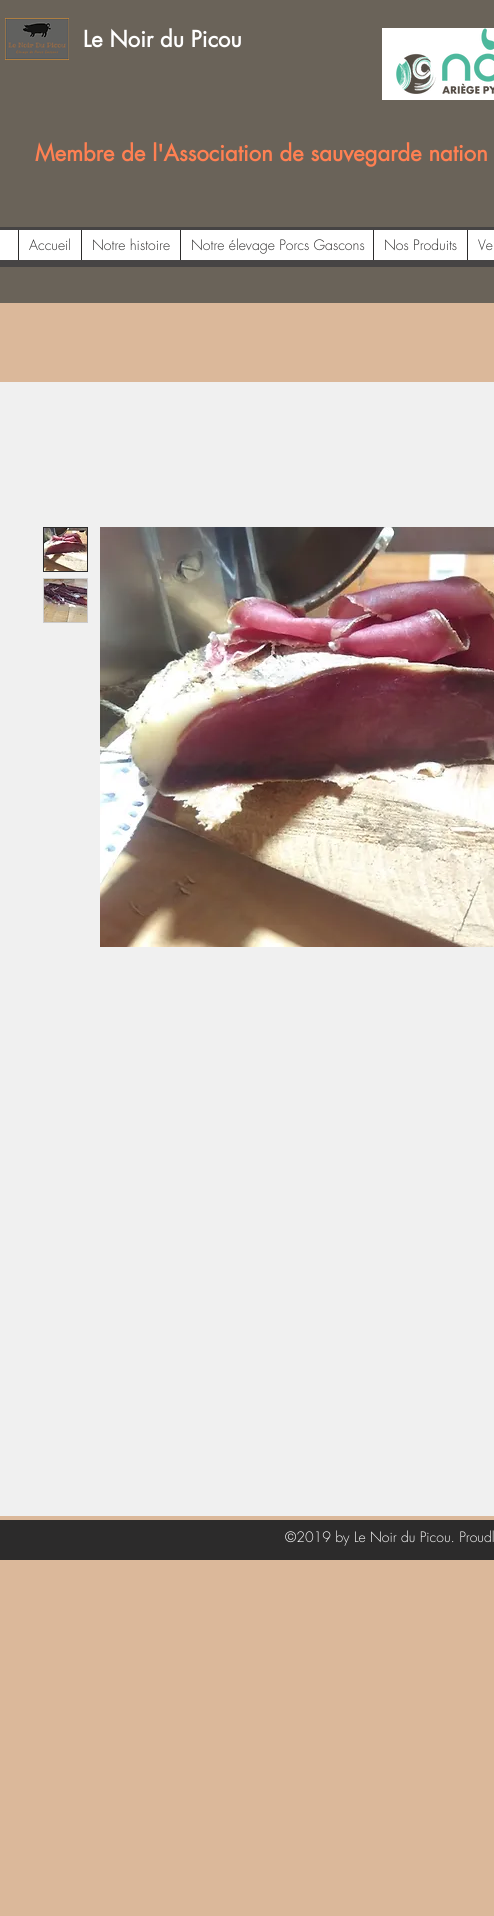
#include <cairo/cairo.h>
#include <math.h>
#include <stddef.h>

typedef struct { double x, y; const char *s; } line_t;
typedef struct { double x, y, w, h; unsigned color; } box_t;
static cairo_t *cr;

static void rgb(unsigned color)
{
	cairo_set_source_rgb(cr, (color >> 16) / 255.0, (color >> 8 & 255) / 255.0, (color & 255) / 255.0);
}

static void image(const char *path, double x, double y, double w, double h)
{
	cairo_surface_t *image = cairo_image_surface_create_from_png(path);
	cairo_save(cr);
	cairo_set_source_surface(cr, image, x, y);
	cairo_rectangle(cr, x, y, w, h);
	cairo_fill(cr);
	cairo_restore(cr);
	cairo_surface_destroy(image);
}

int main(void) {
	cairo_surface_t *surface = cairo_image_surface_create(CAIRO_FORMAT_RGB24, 494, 1916);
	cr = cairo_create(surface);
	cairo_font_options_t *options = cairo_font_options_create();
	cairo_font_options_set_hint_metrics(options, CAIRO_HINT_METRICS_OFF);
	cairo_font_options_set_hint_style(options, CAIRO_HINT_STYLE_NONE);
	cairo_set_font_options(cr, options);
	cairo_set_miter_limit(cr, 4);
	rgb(0xdbb89a);
	cairo_paint(cr);
	rgb(0x6a6359);
	cairo_rectangle(cr, 0, 0, 494, 303);
	cairo_fill(cr);
	image("img/1.png", 5, 18, 64, 42);
	rgb(0xffffff);
	cairo_rectangle(cr, 382, 28, 112, 72);
	cairo_fill(cr);
	image("img/2.png", 396, 28, 98, 66);
	{
		static const box_t items[] = {
			{0, 227, 494, 40, 0x464444},
			{0, 230, 494, 30, 0xffffff},
			{18, 230, 1, 30, 0x2c2b2b},
			{81, 230, 1, 30, 0x2c2b2b},
			{180, 230, 1, 30, 0x2c2b2b},
			{373, 230, 1, 30, 0x2c2b2b},
			{467, 230, 1, 30, 0x2c2b2b},
			{0, 382, 494, 1134, 0xf0f0f0},
		};
		for (size_t i = 0; i < sizeof items / sizeof *items; i++) {
			rgb(items[i].color);
			cairo_rectangle(cr, items[i].x, items[i].y, items[i].w, items[i].h);
			cairo_fill(cr);
		}
	}
	cairo_rectangle(cr, 43.5, 527.5, 44, 44);
	rgb(0x2c2b2b);
	cairo_set_line_width(cr, 1);
	cairo_stroke(cr);
	image("img/3.png", 44, 528, 43, 43);
	rgb(0xcbcaca);
	cairo_rectangle(cr, 43, 578, 45, 45);
	cairo_fill(cr);
	image("img/4.png", 44, 579, 43, 43);
	image("img/5.png", 100, 527, 394, 420);
	rgb(0x2c2b2b);
	cairo_rectangle(cr, 0, 1520, 494, 40);
	cairo_fill(cr);
	cairo_select_font_face(cr, "futura", CAIRO_FONT_SLANT_NORMAL, CAIRO_FONT_WEIGHT_BOLD);
	cairo_set_font_size(cr, 22);
	rgb(0xffffff);
	cairo_move_to(cr, 83, 47);
	cairo_show_text(cr, "Le Noir du Picou");
	rgb(0xff8052);
	cairo_move_to(cr, 35, 161);
	cairo_show_text(cr, "Membre de l'Association de sauvegarde nation");
	cairo_select_font_face(cr, "futura Light", CAIRO_FONT_SLANT_NORMAL, CAIRO_FONT_WEIGHT_NORMAL);
	cairo_set_font_size(cr, 14);
	rgb(0x2c2b2b);
	{
		static const line_t items[] = {
			{29, 250, "Accueil"},
			{92, 250, "Notre histoire"},
			{191, 250, "Notre élevage Porcs Gascons"},
			{384, 250, "Nos Produits"},
			{478, 250, "Ve"},
		};
		for (size_t i = 0; i < sizeof items / sizeof *items; i++) {
			cairo_move_to(cr, items[i].x, items[i].y);
			cairo_show_text(cr, items[i].s);
		}
	}
	rgb(0xffffff);
	cairo_move_to(cr, 285, 1542);
	cairo_show_text(cr, "©2019 by Le Noir du Picou. Proudl");
	cairo_surface_write_to_png(surface, "page.png");
	cairo_font_options_destroy(options);
	cairo_destroy(cr);
	cairo_surface_destroy(surface);
	return 0;
}
